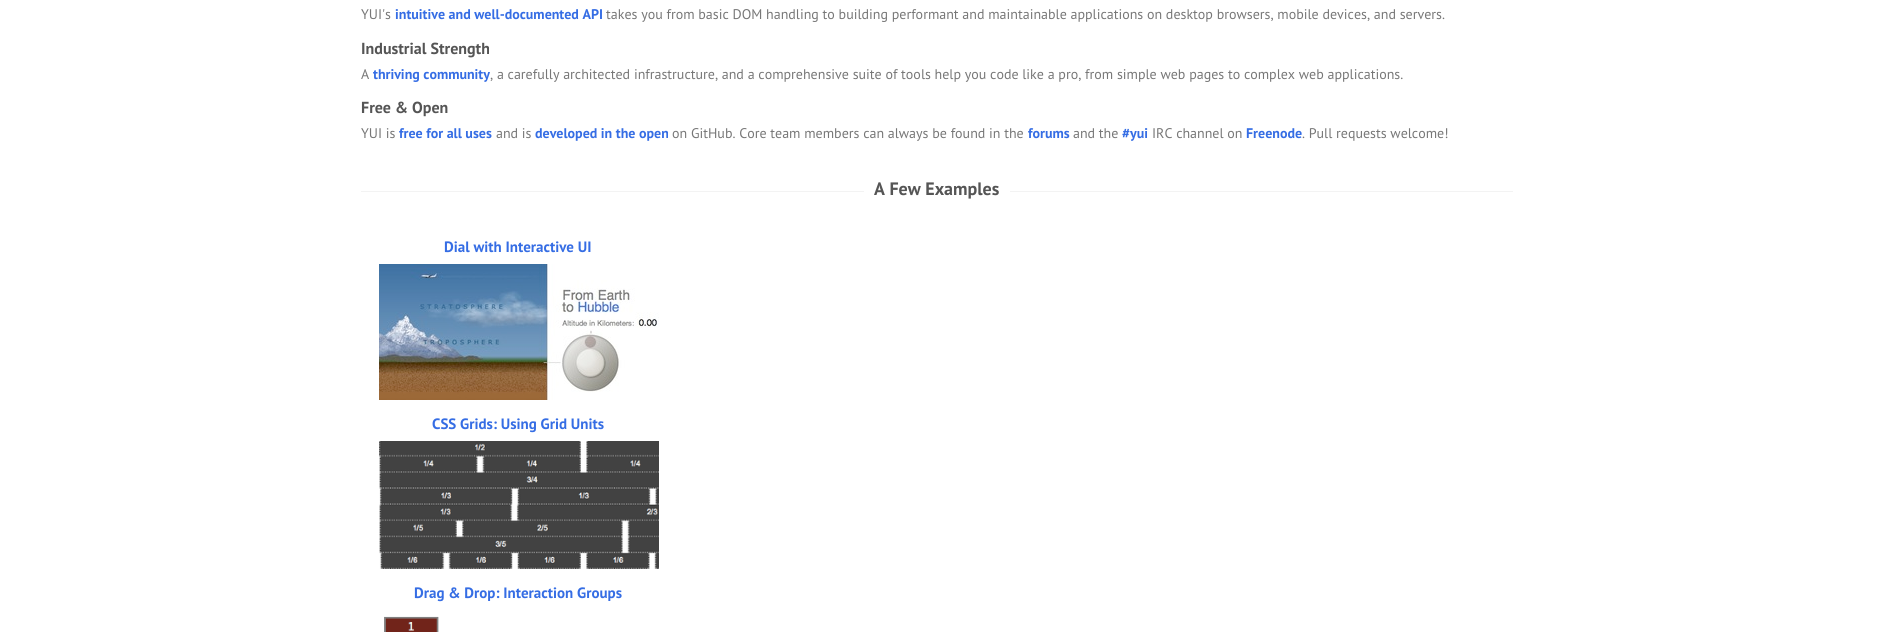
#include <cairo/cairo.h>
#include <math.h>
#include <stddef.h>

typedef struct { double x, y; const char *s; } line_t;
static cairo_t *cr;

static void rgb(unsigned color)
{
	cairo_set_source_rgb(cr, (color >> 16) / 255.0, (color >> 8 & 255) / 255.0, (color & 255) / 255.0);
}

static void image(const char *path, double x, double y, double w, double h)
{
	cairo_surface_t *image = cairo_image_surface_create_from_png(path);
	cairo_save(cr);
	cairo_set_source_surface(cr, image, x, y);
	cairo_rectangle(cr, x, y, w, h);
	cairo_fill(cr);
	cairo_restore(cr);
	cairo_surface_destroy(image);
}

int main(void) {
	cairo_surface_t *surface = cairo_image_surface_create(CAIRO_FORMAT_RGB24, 1882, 632);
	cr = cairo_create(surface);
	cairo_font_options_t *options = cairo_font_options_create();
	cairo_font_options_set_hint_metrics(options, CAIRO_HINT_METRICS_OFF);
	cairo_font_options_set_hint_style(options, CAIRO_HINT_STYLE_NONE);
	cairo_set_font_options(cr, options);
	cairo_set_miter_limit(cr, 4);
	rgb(0xffffff);
	cairo_paint(cr);
	rgb(0xf3f3f3);
	cairo_rectangle(cr, 361, 191, 1152, 1);
	cairo_fill(cr);
	rgb(0xffffff);
	cairo_rectangle(cr, 864, 191, 146, 1);
	cairo_fill(cr);
	image("img/1.png", 379, 264, 280, 136);
	image("img/2.png", 379, 441, 280, 128);
	image("img/3.png", 384, 616, 55, 16);
	cairo_select_font_face(cr, "PT Sans", CAIRO_FONT_SLANT_NORMAL, CAIRO_FONT_WEIGHT_NORMAL);
	cairo_set_font_size(cr, 14);
	rgb(0x777777);
	cairo_move_to(cr, 361, 19);
	cairo_show_text(cr, "YUI's");
	cairo_select_font_face(cr, "PT Sans", CAIRO_FONT_SLANT_NORMAL, CAIRO_FONT_WEIGHT_BOLD);
	rgb(0x356de4);
	cairo_move_to(cr, 395, 19);
	cairo_show_text(cr, "intuitive and well-documented API");
	cairo_select_font_face(cr, "PT Sans", CAIRO_FONT_SLANT_NORMAL, CAIRO_FONT_WEIGHT_NORMAL);
	rgb(0x777777);
	cairo_move_to(cr, 606, 19);
	cairo_show_text(cr, "takes you from basic DOM handling to building performant and maintainable applications on desktop browsers, mobile devices, and servers.");
	cairo_select_font_face(cr, "PT Sans", CAIRO_FONT_SLANT_NORMAL, CAIRO_FONT_WEIGHT_BOLD);
	cairo_set_font_size(cr, 16);
	rgb(0x555555);
	cairo_move_to(cr, 361, 54);
	cairo_show_text(cr, "Industrial Strength");
	cairo_select_font_face(cr, "PT Sans", CAIRO_FONT_SLANT_NORMAL, CAIRO_FONT_WEIGHT_NORMAL);
	cairo_set_font_size(cr, 14);
	rgb(0x777777);
	cairo_move_to(cr, 361, 79);
	cairo_show_text(cr, "A");
	cairo_select_font_face(cr, "PT Sans", CAIRO_FONT_SLANT_NORMAL, CAIRO_FONT_WEIGHT_BOLD);
	rgb(0x356de4);
	cairo_move_to(cr, 373, 79);
	cairo_show_text(cr, "thriving community");
	cairo_select_font_face(cr, "PT Sans", CAIRO_FONT_SLANT_NORMAL, CAIRO_FONT_WEIGHT_NORMAL);
	rgb(0x777777);
	cairo_move_to(cr, 490, 79);
	cairo_show_text(cr, ", a carefully architected infrastructure, and a comprehensive suite of tools help you code like a pro, from simple web pages to complex web applications.");
	cairo_select_font_face(cr, "PT Sans", CAIRO_FONT_SLANT_NORMAL, CAIRO_FONT_WEIGHT_BOLD);
	cairo_set_font_size(cr, 16);
	rgb(0x555555);
	cairo_move_to(cr, 361, 113);
	cairo_show_text(cr, "Free & Open");
	cairo_select_font_face(cr, "PT Sans", CAIRO_FONT_SLANT_NORMAL, CAIRO_FONT_WEIGHT_NORMAL);
	cairo_set_font_size(cr, 14);
	rgb(0x777777);
	cairo_move_to(cr, 361, 138);
	cairo_show_text(cr, "YUI is");
	cairo_select_font_face(cr, "PT Sans", CAIRO_FONT_SLANT_NORMAL, CAIRO_FONT_WEIGHT_BOLD);
	rgb(0x356de4);
	cairo_move_to(cr, 399, 138);
	cairo_show_text(cr, "free for all uses");
	cairo_select_font_face(cr, "PT Sans", CAIRO_FONT_SLANT_NORMAL, CAIRO_FONT_WEIGHT_NORMAL);
	rgb(0x777777);
	cairo_move_to(cr, 496, 138);
	cairo_show_text(cr, "and is");
	cairo_select_font_face(cr, "PT Sans", CAIRO_FONT_SLANT_NORMAL, CAIRO_FONT_WEIGHT_BOLD);
	rgb(0x356de4);
	cairo_move_to(cr, 535, 138);
	cairo_show_text(cr, "developed in the open");
	cairo_select_font_face(cr, "PT Sans", CAIRO_FONT_SLANT_NORMAL, CAIRO_FONT_WEIGHT_NORMAL);
	rgb(0x777777);
	cairo_move_to(cr, 672, 138);
	cairo_show_text(cr, "on GitHub. Core team members can always be found in the");
	cairo_select_font_face(cr, "PT Sans", CAIRO_FONT_SLANT_NORMAL, CAIRO_FONT_WEIGHT_BOLD);
	rgb(0x356de4);
	cairo_move_to(cr, 1028, 138);
	cairo_show_text(cr, "forums");
	cairo_select_font_face(cr, "PT Sans", CAIRO_FONT_SLANT_NORMAL, CAIRO_FONT_WEIGHT_NORMAL);
	rgb(0x777777);
	cairo_move_to(cr, 1073, 138);
	cairo_show_text(cr, "and the");
	cairo_select_font_face(cr, "PT Sans", CAIRO_FONT_SLANT_NORMAL, CAIRO_FONT_WEIGHT_BOLD);
	rgb(0x356de4);
	cairo_move_to(cr, 1122, 138);
	cairo_show_text(cr, "#yui");
	cairo_select_font_face(cr, "PT Sans", CAIRO_FONT_SLANT_NORMAL, CAIRO_FONT_WEIGHT_NORMAL);
	rgb(0x777777);
	cairo_move_to(cr, 1152, 138);
	cairo_show_text(cr, "IRC channel on");
	cairo_select_font_face(cr, "PT Sans", CAIRO_FONT_SLANT_NORMAL, CAIRO_FONT_WEIGHT_BOLD);
	rgb(0x356de4);
	cairo_move_to(cr, 1246, 138);
	cairo_show_text(cr, "Freenode");
	cairo_select_font_face(cr, "PT Sans", CAIRO_FONT_SLANT_NORMAL, CAIRO_FONT_WEIGHT_NORMAL);
	rgb(0x777777);
	cairo_move_to(cr, 1302, 138);
	cairo_show_text(cr, ". Pull requests welcome!");
	cairo_select_font_face(cr, "PT Sans", CAIRO_FONT_SLANT_NORMAL, CAIRO_FONT_WEIGHT_BOLD);
	cairo_set_font_size(cr, 18);
	rgb(0x555555);
	cairo_move_to(cr, 874, 195);
	cairo_show_text(cr, "A Few Examples");
	cairo_set_font_size(cr, 15);
	rgb(0x356de4);
	{
		static const line_t items[] = {
			{444, 252, "Dial with Interactive UI"},
			{432, 429, "CSS Grids: Using Grid Units"},
			{414, 598, "Drag & Drop: Interaction Groups"},
		};
		for (size_t i = 0; i < sizeof items / sizeof *items; i++) {
			cairo_move_to(cr, items[i].x, items[i].y);
			cairo_show_text(cr, items[i].s);
		}
	}
	cairo_surface_write_to_png(surface, "page.png");
	cairo_font_options_destroy(options);
	cairo_destroy(cr);
	cairo_surface_destroy(surface);
	return 0;
}
